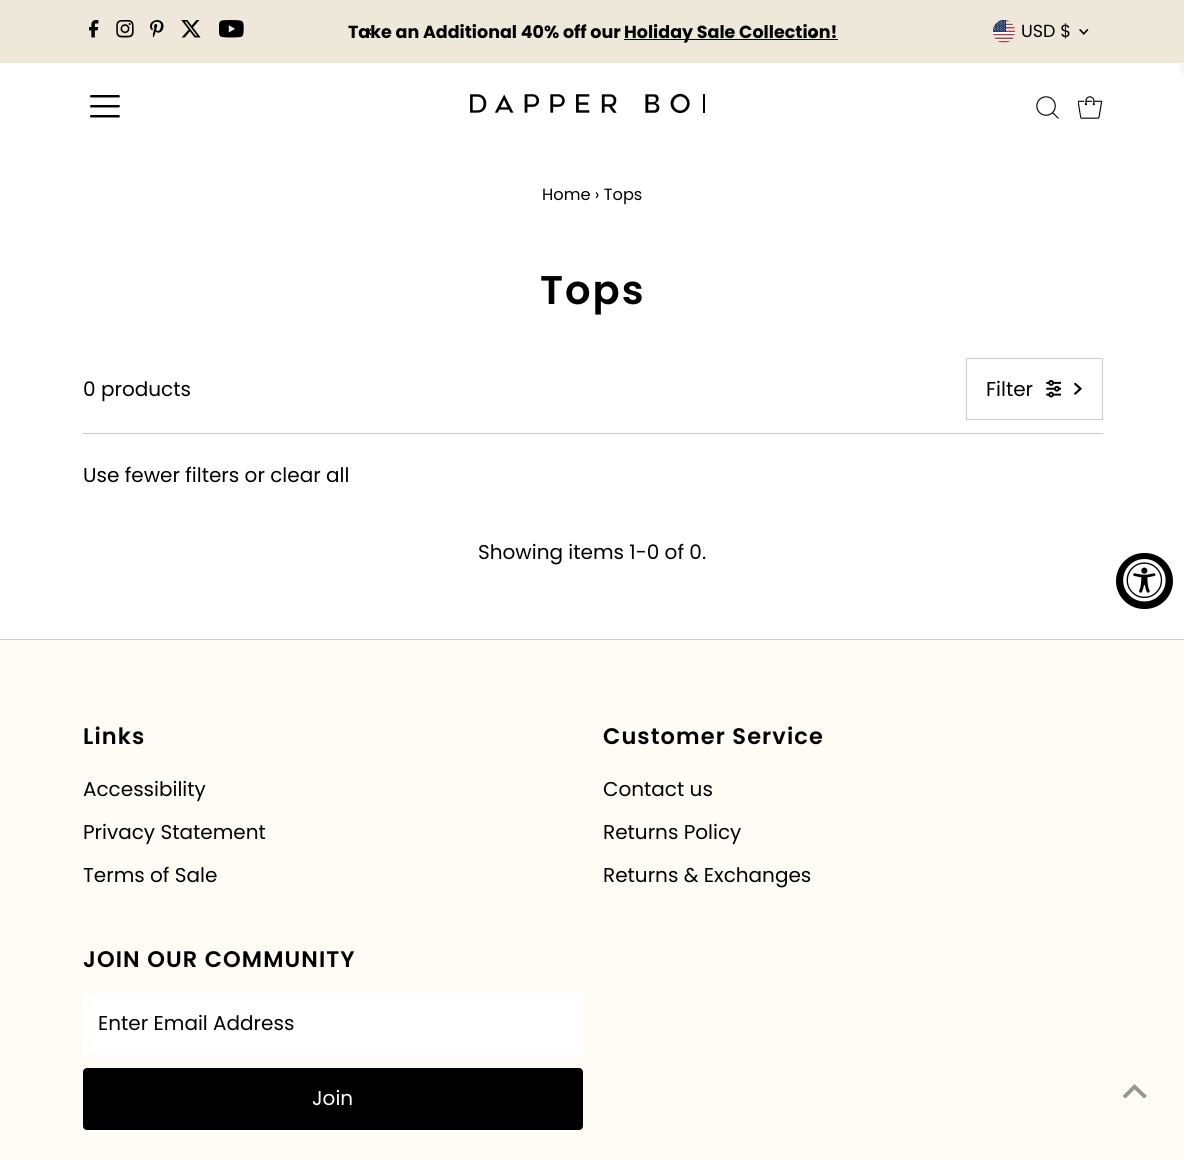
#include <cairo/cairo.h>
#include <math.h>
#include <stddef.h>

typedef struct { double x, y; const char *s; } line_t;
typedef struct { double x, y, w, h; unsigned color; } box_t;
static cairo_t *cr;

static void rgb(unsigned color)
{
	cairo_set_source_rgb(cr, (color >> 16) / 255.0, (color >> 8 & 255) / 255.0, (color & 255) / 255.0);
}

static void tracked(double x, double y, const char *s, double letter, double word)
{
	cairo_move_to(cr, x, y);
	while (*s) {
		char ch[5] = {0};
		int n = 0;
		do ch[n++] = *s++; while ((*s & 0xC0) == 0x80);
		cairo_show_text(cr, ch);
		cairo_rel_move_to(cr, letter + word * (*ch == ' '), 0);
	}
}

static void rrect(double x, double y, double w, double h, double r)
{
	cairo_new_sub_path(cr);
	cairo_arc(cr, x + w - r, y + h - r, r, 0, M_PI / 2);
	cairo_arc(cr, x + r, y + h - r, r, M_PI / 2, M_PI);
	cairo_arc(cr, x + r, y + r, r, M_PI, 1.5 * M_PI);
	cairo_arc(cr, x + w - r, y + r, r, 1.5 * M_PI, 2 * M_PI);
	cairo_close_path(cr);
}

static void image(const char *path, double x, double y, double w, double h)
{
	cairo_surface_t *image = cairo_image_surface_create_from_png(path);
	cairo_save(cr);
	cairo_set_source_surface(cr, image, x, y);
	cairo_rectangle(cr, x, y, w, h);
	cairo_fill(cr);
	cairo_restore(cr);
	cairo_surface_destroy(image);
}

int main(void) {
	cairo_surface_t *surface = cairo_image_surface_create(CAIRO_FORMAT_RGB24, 1184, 1159);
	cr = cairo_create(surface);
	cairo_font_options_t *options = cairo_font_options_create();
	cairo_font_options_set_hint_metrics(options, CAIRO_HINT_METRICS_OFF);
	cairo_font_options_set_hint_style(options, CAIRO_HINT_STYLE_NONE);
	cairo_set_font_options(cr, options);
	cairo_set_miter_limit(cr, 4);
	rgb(0xffffff);
	cairo_paint(cr);
	rgb(0xf5f5f5);
	rrect(1180, 59, 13, 17, 8.5);
	cairo_fill(cr);
	rgb(0xeee8da);
	cairo_rectangle(cr, 0, 0, 1184, 63);
	cairo_fill(cr);
	image("img/1.png", 89, 20, 10, 18);
	image("img/2.png", 116, 20, 18, 18);
	image("img/3.png", 150, 20, 14, 18);
	image("img/4.png", 181, 20, 20, 18);
	image("img/5.png", 219, 20, 25, 18);
	rgb(0x000000);
	cairo_rectangle(cr, 624, 39, 214, 1);
	cairo_fill(cr);
	image("img/8.png", 993, 20, 22, 23);
	image("img/9.png", 1079, 29, 10, 6);
	image("img/10.png", 90, 95, 30, 23);
	image("img/11.png", 470, 93, 235, 21);
	image("img/12.png", 1036, 96, 23, 23);
	image("img/13.png", 1078, 96, 25, 23);
	rgb(0xcccccc);
	cairo_rectangle(cr, 83, 433, 1020, 1);
	cairo_fill(cr);
	cairo_rectangle(cr, 966.5, 358.5, 136, 61);
	cairo_set_line_width(cr, 1);
	cairo_stroke(cr);
	image("img/14.png", 1046, 380, 15, 18);
	image("img/15.png", 1074, 383, 8, 12);
	{
		static const box_t items[] = {
			{0, 640, 1184, 519, 0xfffcf5},
			{0, 639, 1184, 1, 0xcccccc},
			{83, 993, 500, 62, 0xffffff},
		};
		for (size_t i = 0; i < sizeof items / sizeof *items; i++) {
			rgb(items[i].color);
			cairo_rectangle(cr, items[i].x, items[i].y, items[i].w, items[i].h);
			cairo_fill(cr);
		}
	}
	rgb(0x000000);
	rrect(83, 1068, 500, 62, 4);
	cairo_fill(cr);
	rgb(0x999793);
	cairo_new_path(cr);
	cairo_move_to(cr, 1134.5, 1084);
	cairo_line_to(cr, 1122.5, 1096);
	cairo_line_to(cr, 1125.5, 1098.5);
	cairo_line_to(cr, 1134.5, 1089.5);
	cairo_line_to(cr, 1144, 1098.5);
	cairo_line_to(cr, 1147, 1096);
	cairo_close_path(cr);
	cairo_fill(cr);
	rgb(0x000000);
	rrect(1116, 553, 57, 56, 28);
	cairo_fill(cr);
	image("img/16.png", 1123, 559, 43, 43);
	cairo_select_font_face(cr, "Poppins", CAIRO_FONT_SLANT_NORMAL, CAIRO_FONT_WEIGHT_BOLD);
	cairo_set_font_size(cr, 17.5);
	cairo_move_to(cr, 348, 38);
	cairo_show_text(cr, "Take an Additional 40% off our");
	cairo_move_to(cr, 624, 38);
	cairo_show_text(cr, "Holiday Sale Collection!");
	image("img/6.png", 368, 28, 3, 8);
	image("img/7.png", 812, 28, 6, 8);
	cairo_select_font_face(cr, "Poppins", CAIRO_FONT_SLANT_NORMAL, CAIRO_FONT_WEIGHT_NORMAL);
	cairo_move_to(cr, 1021, 37);
	cairo_show_text(cr, "USD $");
	cairo_set_font_size(cr, 16.25);
	cairo_move_to(cr, 542, 200);
	cairo_show_text(cr, "Home › Tops");
	cairo_select_font_face(cr, "Poppins SemiBold", CAIRO_FONT_SLANT_NORMAL, CAIRO_FONT_WEIGHT_NORMAL);
	cairo_set_font_size(cr, 40);
	tracked(540, 304, "Tops", 2, 0);
	cairo_select_font_face(cr, "Poppins", CAIRO_FONT_SLANT_NORMAL, CAIRO_FONT_WEIGHT_NORMAL);
	cairo_set_font_size(cr, 20);
	{
		static const line_t items[] = {
			{83, 396, "0 products"},
			{986, 396, "Filter"},
			{83, 482, "Use fewer filters or clear all"},
			{478, 559, "Showing items 1-0 of 0."},
		};
		for (size_t i = 0; i < sizeof items / sizeof *items; i++) {
			cairo_move_to(cr, items[i].x, items[i].y);
			cairo_show_text(cr, items[i].s);
		}
	}
	cairo_select_font_face(cr, "Poppins SemiBold", CAIRO_FONT_SLANT_NORMAL, CAIRO_FONT_WEIGHT_NORMAL);
	cairo_set_font_size(cr, 22.5);
	tracked(83, 744, "Links", 1.1, 0);
	cairo_select_font_face(cr, "Poppins", CAIRO_FONT_SLANT_NORMAL, CAIRO_FONT_WEIGHT_NORMAL);
	cairo_set_font_size(cr, 20);
	{
		static const line_t items[] = {
			{83, 796, "Accessibility"},
			{83, 839, "Privacy Statement"},
			{83, 882, "Terms of Sale"},
		};
		for (size_t i = 0; i < sizeof items / sizeof *items; i++) {
			cairo_move_to(cr, items[i].x, items[i].y);
			cairo_show_text(cr, items[i].s);
		}
	}
	cairo_select_font_face(cr, "Poppins SemiBold", CAIRO_FONT_SLANT_NORMAL, CAIRO_FONT_WEIGHT_NORMAL);
	cairo_set_font_size(cr, 22.5);
	tracked(603, 744, "Customer Service", 1.1, 0);
	cairo_select_font_face(cr, "Poppins", CAIRO_FONT_SLANT_NORMAL, CAIRO_FONT_WEIGHT_NORMAL);
	cairo_set_font_size(cr, 20);
	{
		static const line_t items[] = {
			{603, 796, "Contact us"},
			{603, 839, "Returns Policy"},
			{603, 882, "Returns & Exchanges"},
		};
		for (size_t i = 0; i < sizeof items / sizeof *items; i++) {
			cairo_move_to(cr, items[i].x, items[i].y);
			cairo_show_text(cr, items[i].s);
		}
	}
	cairo_select_font_face(cr, "Poppins SemiBold", CAIRO_FONT_SLANT_NORMAL, CAIRO_FONT_WEIGHT_NORMAL);
	cairo_set_font_size(cr, 22.5);
	tracked(83, 967, "JOIN OUR COMMUNITY", 1.1, 0);
	cairo_select_font_face(cr, "Poppins", CAIRO_FONT_SLANT_NORMAL, CAIRO_FONT_WEIGHT_NORMAL);
	cairo_set_font_size(cr, 20);
	cairo_move_to(cr, 98, 1030);
	cairo_show_text(cr, "Enter Email Address");
	rgb(0xffffff);
	cairo_move_to(cr, 312, 1105);
	cairo_show_text(cr, "Join");
	cairo_surface_write_to_png(surface, "page.png");
	cairo_font_options_destroy(options);
	cairo_destroy(cr);
	cairo_surface_destroy(surface);
	return 0;
}
